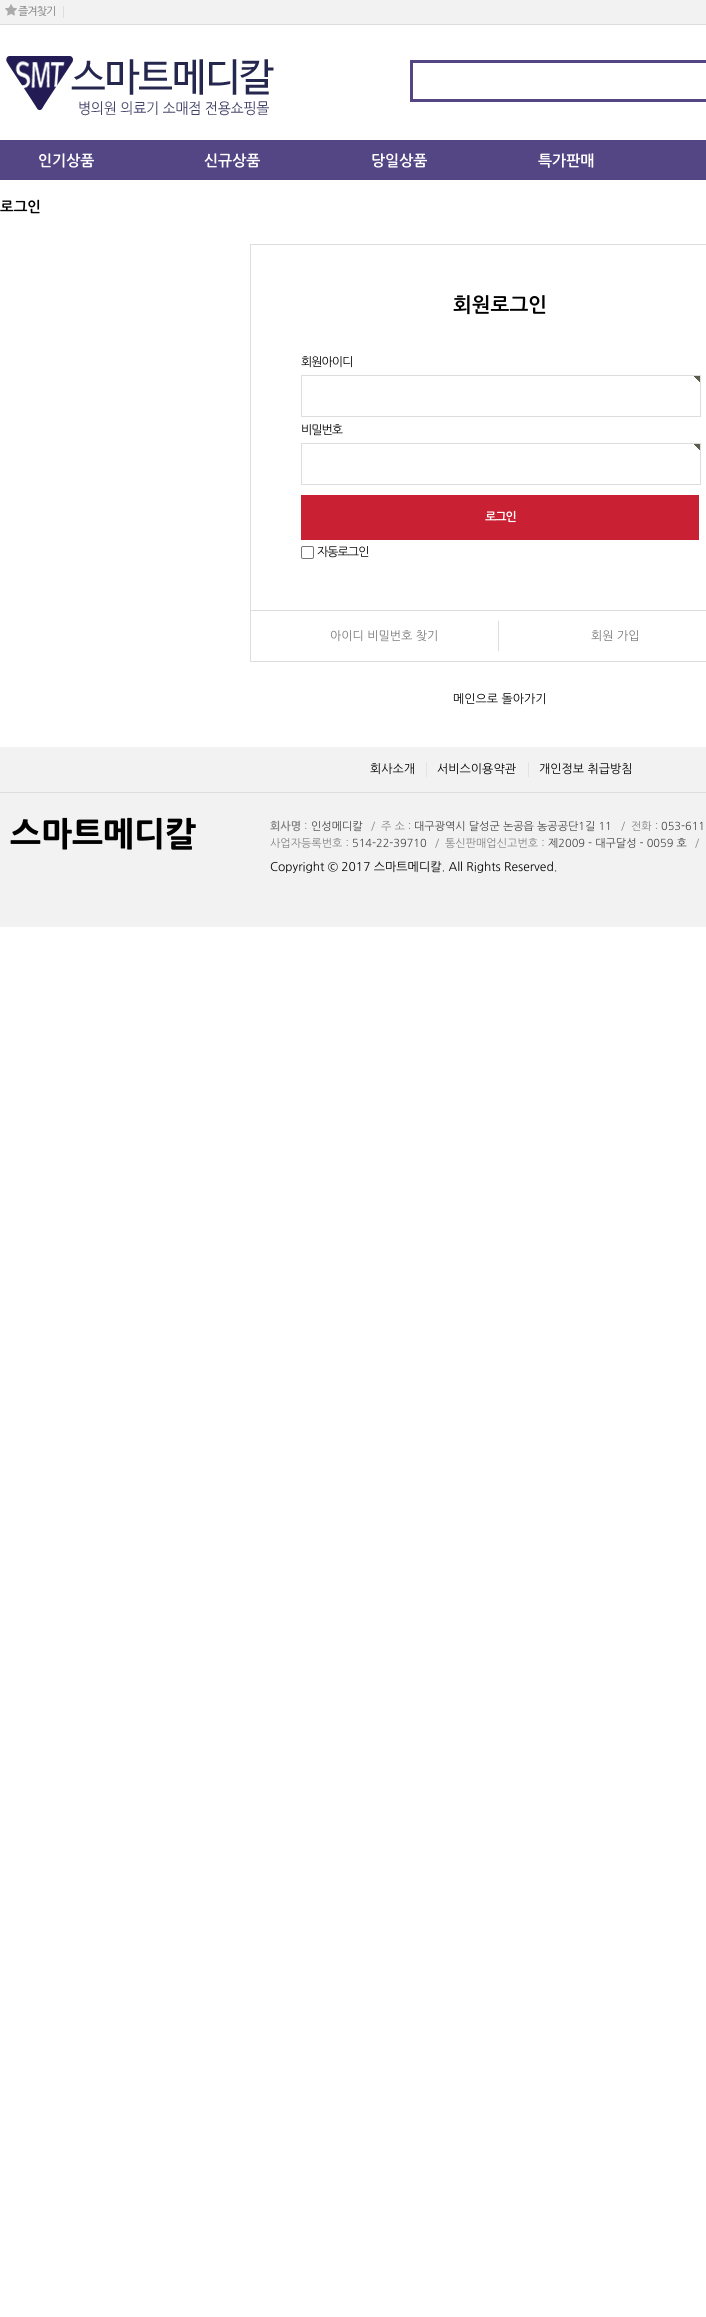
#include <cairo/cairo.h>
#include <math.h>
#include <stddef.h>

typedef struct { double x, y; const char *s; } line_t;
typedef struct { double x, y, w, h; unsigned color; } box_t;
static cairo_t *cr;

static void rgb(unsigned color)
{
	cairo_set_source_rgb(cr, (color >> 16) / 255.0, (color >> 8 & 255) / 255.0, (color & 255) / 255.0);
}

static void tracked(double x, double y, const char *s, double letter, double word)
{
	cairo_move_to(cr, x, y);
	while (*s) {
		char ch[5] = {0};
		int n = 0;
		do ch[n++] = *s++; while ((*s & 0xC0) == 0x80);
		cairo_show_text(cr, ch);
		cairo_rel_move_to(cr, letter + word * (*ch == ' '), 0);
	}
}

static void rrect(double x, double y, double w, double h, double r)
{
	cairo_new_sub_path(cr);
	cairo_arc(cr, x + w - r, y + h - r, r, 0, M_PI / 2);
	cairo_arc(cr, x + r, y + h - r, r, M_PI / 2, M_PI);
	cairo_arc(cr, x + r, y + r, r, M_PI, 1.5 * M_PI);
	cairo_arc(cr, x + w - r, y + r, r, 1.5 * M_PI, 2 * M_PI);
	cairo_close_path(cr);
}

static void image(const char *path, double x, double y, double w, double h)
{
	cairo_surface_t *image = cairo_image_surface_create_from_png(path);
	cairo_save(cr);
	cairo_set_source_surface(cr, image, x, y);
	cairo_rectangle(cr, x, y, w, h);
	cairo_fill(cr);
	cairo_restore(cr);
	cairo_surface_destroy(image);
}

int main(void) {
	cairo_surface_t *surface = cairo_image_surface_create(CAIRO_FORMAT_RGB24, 706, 2317);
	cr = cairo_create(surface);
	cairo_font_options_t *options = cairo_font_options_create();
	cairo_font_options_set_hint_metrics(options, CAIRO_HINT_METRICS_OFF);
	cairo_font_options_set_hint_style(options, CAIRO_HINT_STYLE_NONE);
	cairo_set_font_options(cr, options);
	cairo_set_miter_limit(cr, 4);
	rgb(0xffffff);
	cairo_paint(cr);
	rgb(0xf2f2f2);
	cairo_rectangle(cr, 0, 0, 706, 24);
	cairo_fill(cr);
	rgb(0xdddddd);
	cairo_rectangle(cr, 0, 24, 706, 1);
	cairo_fill(cr);
	image("img/1.png", 5, 4, 12, 12);
	cairo_rectangle(cr, 63, 6, 1, 12);
	cairo_fill(cr);
	image("img/2.png", 6, 56, 268, 60);
	cairo_rectangle(cr, 411.5, 61.5, 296, 39);
	rgb(0x544584);
	cairo_set_line_width(cr, 3);
	cairo_stroke(cr);
	{
		static const box_t items[] = {
			{0, 140, 706, 40, 0x544584},
			{250, 244, 456, 1, 0xdddddd},
			{250, 244, 1, 366, 0xdddddd},
		};
		for (size_t i = 0; i < sizeof items / sizeof *items; i++) {
			rgb(items[i].color);
			cairo_rectangle(cr, items[i].x, items[i].y, items[i].w, items[i].h);
			cairo_fill(cr);
		}
	}
	image("img/3.png", 694, 376, 6, 6);
	cairo_rectangle(cr, 301.5, 375.5, 399, 41);
	cairo_set_line_width(cr, 1);
	cairo_stroke(cr);
	image("img/3.png", 694, 444, 6, 6);
	cairo_rectangle(cr, 301.5, 443.5, 399, 41);
	cairo_stroke(cr);
	rgb(0xc92033);
	cairo_rectangle(cr, 301, 495, 398, 45);
	cairo_fill(cr);
	rrect(301.5, 546.5, 12, 12, 1.5);
	rgb(0x767676);
	cairo_stroke(cr);
	cairo_rectangle(cr, 250.5, 610.5, 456, 51);
	rgb(0xdddddd);
	cairo_stroke(cr);
	{
		static const box_t items[] = {
			{498, 621, 1, 30, 0xdddddd},
			{0, 747, 706, 180, 0xf2f2f2},
			{0, 792, 706, 1, 0xdddddd},
			{426, 762, 1, 15, 0xe3e3e3},
			{528, 762, 1, 15, 0xe3e3e3},
		};
		for (size_t i = 0; i < sizeof items / sizeof *items; i++) {
			rgb(items[i].color);
			cairo_rectangle(cr, items[i].x, items[i].y, items[i].w, items[i].h);
			cairo_fill(cr);
		}
	}
	cairo_select_font_face(cr, "NanumGothic", CAIRO_FONT_SLANT_NORMAL, CAIRO_FONT_WEIGHT_NORMAL);
	cairo_set_font_size(cr, 11);
	rgb(0x797979);
	tracked(18, 15, "즐겨찾기", -1, 0);
	cairo_select_font_face(cr, "NanumGothic", CAIRO_FONT_SLANT_NORMAL, CAIRO_FONT_WEIGHT_BOLD);
	cairo_set_font_size(cr, 15);
	rgb(0xffffff);
	{
		static const line_t items[] = {
			{38, 166, "인기상품"},
			{204, 166, "신규상품"},
			{371, 166, "당일상품"},
			{538, 166, "특가판매"},
		};
		for (size_t i = 0; i < sizeof items / sizeof *items; i++) {
			cairo_move_to(cr, items[i].x, items[i].y);
			cairo_show_text(cr, items[i].s);
		}
	}
	cairo_set_font_size(cr, 14.5);
	rgb(0x000000);
	cairo_move_to(cr, 0, 212);
	cairo_show_text(cr, "로그인");
	cairo_set_font_size(cr, 20);
	cairo_move_to(cr, 453, 312);
	cairo_show_text(cr, "회원로그인");
	cairo_select_font_face(cr, "NanumGothic", CAIRO_FONT_SLANT_NORMAL, CAIRO_FONT_WEIGHT_NORMAL);
	cairo_set_font_size(cr, 12);
	tracked(301, 366, "회원아이디", -1, 0);
	tracked(301, 434, "비밀번호", -1, 0);
	cairo_select_font_face(cr, "NanumGothic", CAIRO_FONT_SLANT_NORMAL, CAIRO_FONT_WEIGHT_BOLD);
	rgb(0xffffff);
	tracked(485, 521, "로그인", -1, 0);
	cairo_select_font_face(cr, "NanumGothic", CAIRO_FONT_SLANT_NORMAL, CAIRO_FONT_WEIGHT_NORMAL);
	rgb(0x000000);
	tracked(317, 556, "자동로그인", -1, 0);
	rgb(0x797979);
	cairo_move_to(cr, 330, 640);
	cairo_show_text(cr, "아이디 비밀번호 찾기");
	cairo_move_to(cr, 591, 640);
	cairo_show_text(cr, "회원 가입");
	rgb(0x000000);
	{
		static const line_t items[] = {
			{453, 703, "메인으로 돌아가기"},
			{370, 773, "회사소개"},
			{437, 773, "서비스이용약관"},
			{539, 773, "개인정보 취급방침"},
		};
		for (size_t i = 0; i < sizeof items / sizeof *items; i++) {
			cairo_move_to(cr, items[i].x, items[i].y);
			cairo_show_text(cr, items[i].s);
		}
	}
	cairo_select_font_face(cr, "NanumGothic ExtraBold", CAIRO_FONT_SLANT_NORMAL, CAIRO_FONT_WEIGHT_NORMAL);
	cairo_set_font_size(cr, 33);
	cairo_move_to(cr, 10, 846);
	cairo_show_text(cr, "스마트메디칼");
	cairo_select_font_face(cr, "NanumGothic", CAIRO_FONT_SLANT_NORMAL, CAIRO_FONT_WEIGHT_BOLD);
	cairo_set_font_size(cr, 11);
	rgb(0x848484);
	cairo_move_to(cr, 270, 830);
	cairo_show_text(cr, "회사명");
	cairo_select_font_face(cr, "NanumGothic", CAIRO_FONT_SLANT_NORMAL, CAIRO_FONT_WEIGHT_NORMAL);
	cairo_move_to(cr, 304, 830);
	cairo_show_text(cr, ":");
	rgb(0x444444);
	cairo_move_to(cr, 311, 830);
	cairo_show_text(cr, "인성메디칼");
	rgb(0x848484);
	cairo_move_to(cr, 371, 830);
	cairo_show_text(cr, "/");
	cairo_move_to(cr, 381, 830);
	cairo_show_text(cr, "주 소 :");
	rgb(0x444444);
	cairo_move_to(cr, 414, 830);
	cairo_show_text(cr, "대구광역시 달성군 논공읍 농공공단1길 11");
	rgb(0x848484);
	cairo_move_to(cr, 621, 830);
	cairo_show_text(cr, "/");
	cairo_move_to(cr, 631, 830);
	cairo_show_text(cr, "전화 :");
	rgb(0x444444);
	cairo_move_to(cr, 661, 830);
	cairo_show_text(cr, "053-611");
	rgb(0x848484);
	cairo_move_to(cr, 270, 847);
	cairo_show_text(cr, "사업자등록번호 :");
	rgb(0x444444);
	cairo_move_to(cr, 352, 847);
	cairo_show_text(cr, "514-22-39710");
	rgb(0x848484);
	cairo_move_to(cr, 435, 847);
	cairo_show_text(cr, "/");
	cairo_move_to(cr, 445, 847);
	cairo_show_text(cr, "통신판매업신고번호 :");
	rgb(0x444444);
	cairo_move_to(cr, 548, 847);
	cairo_show_text(cr, "제2009 - 대구달성 - 0059 호");
	rgb(0x848484);
	cairo_move_to(cr, 695, 847);
	cairo_show_text(cr, "/");
	cairo_set_font_size(cr, 12);
	rgb(0x000000);
	cairo_move_to(cr, 270, 871);
	cairo_show_text(cr, "Copyright © 2017 스마트메디칼. All Rights Reserved.");
	cairo_surface_write_to_png(surface, "page.png");
	cairo_font_options_destroy(options);
	cairo_destroy(cr);
	cairo_surface_destroy(surface);
	return 0;
}
